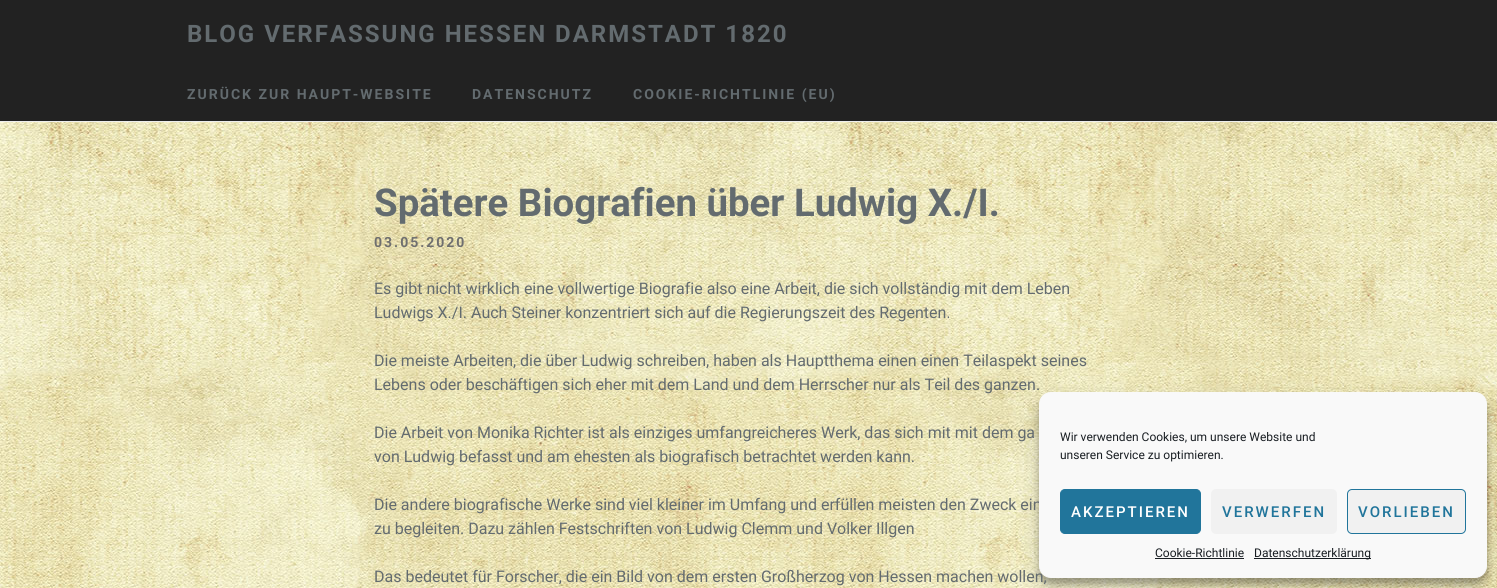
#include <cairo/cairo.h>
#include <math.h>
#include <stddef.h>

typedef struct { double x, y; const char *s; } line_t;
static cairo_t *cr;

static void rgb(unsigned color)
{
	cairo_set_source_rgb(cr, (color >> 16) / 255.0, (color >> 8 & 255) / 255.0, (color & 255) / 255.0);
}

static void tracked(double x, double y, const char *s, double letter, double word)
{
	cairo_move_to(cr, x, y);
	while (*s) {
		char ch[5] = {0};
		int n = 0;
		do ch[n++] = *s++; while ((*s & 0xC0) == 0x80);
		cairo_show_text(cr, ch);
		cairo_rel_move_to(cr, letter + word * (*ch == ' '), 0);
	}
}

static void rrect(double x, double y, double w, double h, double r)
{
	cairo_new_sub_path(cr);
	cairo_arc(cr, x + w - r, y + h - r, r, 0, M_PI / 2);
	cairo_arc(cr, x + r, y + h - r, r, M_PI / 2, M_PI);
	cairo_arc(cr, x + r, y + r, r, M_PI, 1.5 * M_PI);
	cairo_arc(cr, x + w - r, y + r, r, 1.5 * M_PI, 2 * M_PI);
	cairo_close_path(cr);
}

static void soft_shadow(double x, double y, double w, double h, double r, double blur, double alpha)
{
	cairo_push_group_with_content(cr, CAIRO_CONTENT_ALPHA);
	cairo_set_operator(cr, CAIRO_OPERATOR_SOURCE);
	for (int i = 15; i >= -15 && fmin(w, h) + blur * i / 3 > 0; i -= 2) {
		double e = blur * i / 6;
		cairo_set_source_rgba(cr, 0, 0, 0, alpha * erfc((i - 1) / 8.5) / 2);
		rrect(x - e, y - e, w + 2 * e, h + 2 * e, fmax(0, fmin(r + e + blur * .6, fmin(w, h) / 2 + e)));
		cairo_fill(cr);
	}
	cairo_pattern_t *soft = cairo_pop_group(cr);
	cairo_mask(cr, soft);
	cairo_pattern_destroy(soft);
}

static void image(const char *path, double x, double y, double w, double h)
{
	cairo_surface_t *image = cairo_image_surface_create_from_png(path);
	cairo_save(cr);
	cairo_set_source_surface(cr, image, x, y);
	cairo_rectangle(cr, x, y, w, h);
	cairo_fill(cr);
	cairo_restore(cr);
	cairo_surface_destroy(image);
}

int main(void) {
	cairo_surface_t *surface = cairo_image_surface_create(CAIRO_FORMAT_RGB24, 1497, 588);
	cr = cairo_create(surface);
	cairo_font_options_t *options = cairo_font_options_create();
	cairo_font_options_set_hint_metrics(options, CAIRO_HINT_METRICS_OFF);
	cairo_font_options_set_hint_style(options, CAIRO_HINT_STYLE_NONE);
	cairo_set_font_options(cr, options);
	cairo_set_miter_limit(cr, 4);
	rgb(0xffffff);
	cairo_paint(cr);
	image("img/1.png", 0, 122, 1497, 466);
	rgb(0x222222);
	cairo_rectangle(cr, 0, 0, 1497, 121);
	cairo_fill(cr);
	rgb(0xeeeeee);
	cairo_rectangle(cr, 0, 121, 1497, 1);
	cairo_fill(cr);
	rgb(0x000000);
	soft_shadow(1039, 398, 448, 186, 12, 3, 0.23);
	soft_shadow(1039, 402, 448, 186, 12, 10, 0.19);
	cairo_select_font_face(cr, "Roboto", CAIRO_FONT_SLANT_NORMAL, CAIRO_FONT_WEIGHT_BOLD);
	cairo_set_font_size(cr, 24);
	rgb(0x636b6f);
	tracked(187, 42, "BLOG VERFASSUNG HESSEN DARMSTADT 1820", 2, 0);
	cairo_set_font_size(cr, 14);
	{
		static const line_t items[] = {
			{187, 99, "ZURÜCK ZUR HAUPT-WEBSITE"},
			{472, 99, "DATENSCHUTZ"},
			{633, 99, "COOKIE-RICHTLINIE (EU)"},
		};
		for (size_t i = 0; i < sizeof items / sizeof *items; i++) {
			tracked(items[i].x, items[i].y, items[i].s, 2, 0);
		}
	}
	cairo_set_font_size(cr, 38.4);
	cairo_move_to(cr, 374, 216);
	cairo_show_text(cr, "Spätere Biografien über Ludwig X./I.");
	cairo_set_font_size(cr, 14);
	rgb(0x6f6f6f);
	tracked(374, 247, "03.05.2020", 2, 0);
	cairo_select_font_face(cr, "Roboto", CAIRO_FONT_SLANT_NORMAL, CAIRO_FONT_WEIGHT_NORMAL);
	cairo_set_font_size(cr, 16);
	rgb(0x636b6f);
	{
		static const line_t items[] = {
			{374, 294, "Es gibt nicht wirklich eine vollwertige Biografie also eine Arbeit, die sich vollständig mit dem Leben"},
			{374, 318, "Ludwigs X./I. Auch Steiner konzentriert sich auf die Regierungszeit des Regenten."},
			{374, 366, "Die meiste Arbeiten, die über Ludwig schreiben, haben als Hauptthema einen einen Teilaspekt seines"},
			{374, 390, "Lebens oder beschäftigen sich eher mit dem Land und dem Herrscher nur als Teil des ganzen."},
			{374, 438, "Die Arbeit von Monika Richter ist als einziges umfangreicheres Werk, das sich mit mit dem ga"},
			{374, 462, "von Ludwig befasst und am ehesten als biografisch betrachtet werden kann."},
			{374, 510, "Die andere biografische Werke sind viel kleiner im Umfang und erfüllen meisten den Zweck ein"},
			{374, 534, "zu begleiten. Dazu zählen Festschriften von Ludwig Clemm und Volker Illgen"},
			{374, 582, "Das bedeutet für Forscher, die ein Bild von dem ersten Großherzog von Hessen machen wollen,"},
		};
		for (size_t i = 0; i < sizeof items / sizeof *items; i++) {
			cairo_move_to(cr, items[i].x, items[i].y);
			cairo_show_text(cr, items[i].s);
		}
	}
	rgb(0xf9f9f9);
	rrect(1039.5, 392.5, 447, 185, 11.5);
	cairo_fill_preserve(cr);
	cairo_set_line_width(cr, 1);
	cairo_stroke(cr);
	cairo_set_font_size(cr, 12);
	rgb(0x191e23);
	cairo_move_to(cr, 1060, 441);
	cairo_show_text(cr, "Wir verwenden Cookies, um unsere Website und");
	cairo_move_to(cr, 1060, 459);
	cairo_show_text(cr, "unseren Service zu optimieren.");
	rgb(0x21759b);
	rrect(1060.5, 489.5, 140, 44, 4.5);
	cairo_fill_preserve(cr);
	cairo_stroke(cr);
	cairo_select_font_face(cr, "Roboto Medium", CAIRO_FONT_SLANT_NORMAL, CAIRO_FONT_WEIGHT_NORMAL);
	cairo_set_font_size(cr, 15);
	rgb(0xffffff);
	tracked(1071, 517, "AKZEPTIEREN", 2, 0);
	rgb(0xf1f1f1);
	rrect(1211, 489, 126, 45, 5);
	cairo_fill(cr);
	rgb(0x21759b);
	tracked(1222, 517, "VERWERFEN", 2, 0);
	rgb(0xf1f1f1);
	rrect(1347.5, 489.5, 118, 44, 4.5);
	cairo_fill_preserve(cr);
	rgb(0x21759b);
	cairo_stroke(cr);
	tracked(1358, 517, "VORLIEBEN", 2, 0);
	cairo_select_font_face(cr, "Roboto", CAIRO_FONT_SLANT_NORMAL, CAIRO_FONT_WEIGHT_NORMAL);
	cairo_set_font_size(cr, 12);
	rgb(0x191e23);
	cairo_move_to(cr, 1155, 557);
	cairo_show_text(cr, "Cookie-Richtlinie");
	cairo_rectangle(cr, 1155, 558, 89, 1);
	cairo_fill(cr);
	cairo_rectangle(cr, 1254, 558, 117, 1);
	cairo_fill(cr);
	cairo_move_to(cr, 1254, 557);
	cairo_show_text(cr, "Datenschutzerklärung");
	cairo_surface_write_to_png(surface, "page.png");
	cairo_font_options_destroy(options);
	cairo_destroy(cr);
	cairo_surface_destroy(surface);
	return 0;
}
